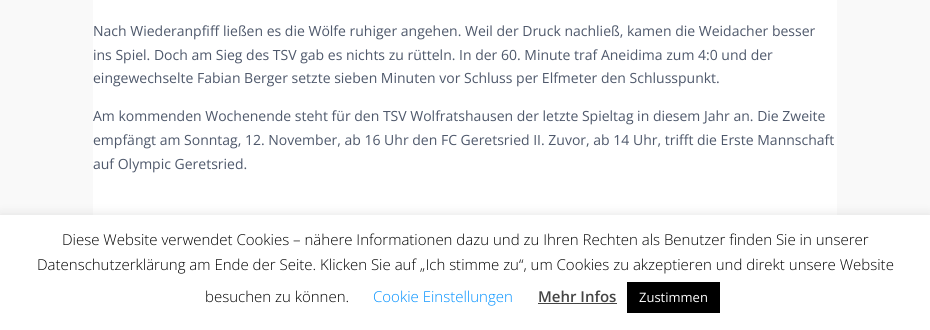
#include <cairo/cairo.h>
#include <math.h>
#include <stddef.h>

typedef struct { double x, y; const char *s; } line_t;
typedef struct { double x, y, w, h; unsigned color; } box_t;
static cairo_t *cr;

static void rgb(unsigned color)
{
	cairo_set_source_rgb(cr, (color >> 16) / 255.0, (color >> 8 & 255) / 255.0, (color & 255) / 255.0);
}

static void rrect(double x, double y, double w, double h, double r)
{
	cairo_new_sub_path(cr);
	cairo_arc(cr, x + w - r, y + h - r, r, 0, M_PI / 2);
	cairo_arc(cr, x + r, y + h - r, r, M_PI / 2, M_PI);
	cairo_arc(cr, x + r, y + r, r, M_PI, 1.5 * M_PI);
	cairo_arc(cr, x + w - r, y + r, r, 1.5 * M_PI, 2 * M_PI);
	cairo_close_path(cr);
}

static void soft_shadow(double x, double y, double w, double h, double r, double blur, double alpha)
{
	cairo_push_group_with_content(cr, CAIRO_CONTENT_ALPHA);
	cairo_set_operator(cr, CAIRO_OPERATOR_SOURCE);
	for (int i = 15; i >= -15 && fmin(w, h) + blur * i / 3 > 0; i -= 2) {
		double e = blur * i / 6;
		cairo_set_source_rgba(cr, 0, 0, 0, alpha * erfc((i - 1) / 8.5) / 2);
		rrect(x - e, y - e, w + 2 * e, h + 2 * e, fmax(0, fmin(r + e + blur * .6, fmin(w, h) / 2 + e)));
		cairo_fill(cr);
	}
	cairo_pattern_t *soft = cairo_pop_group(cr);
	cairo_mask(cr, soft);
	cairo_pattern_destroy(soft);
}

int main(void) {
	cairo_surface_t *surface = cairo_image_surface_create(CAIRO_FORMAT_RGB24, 930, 330);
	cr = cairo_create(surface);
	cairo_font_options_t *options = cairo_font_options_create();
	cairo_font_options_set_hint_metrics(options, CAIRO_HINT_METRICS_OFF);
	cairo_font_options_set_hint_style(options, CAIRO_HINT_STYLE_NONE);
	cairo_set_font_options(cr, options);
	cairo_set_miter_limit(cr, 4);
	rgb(0xf9f9f9);
	cairo_paint(cr);
	rgb(0xffffff);
	cairo_rectangle(cr, 93, 0, 744, 215);
	cairo_fill(cr);
	cairo_set_source_rgba(cr, 1, 1, 1, 0.1);
	cairo_rectangle(cr, 155, 74, 559, 1);
	cairo_fill(cr);
	rgb(0xacabab);
	soft_shadow(0, 214, 930, 115, 0, 5, 0.3);
	{
		static const box_t items[] = {
			{0, 215, 930, 115, 0xffffff},
			{538, 303, 79, 1, 0x444444},
			{627, 282, 93, 31, 0x000000},
		};
		for (size_t i = 0; i < sizeof items / sizeof *items; i++) {
			rgb(items[i].color);
			cairo_rectangle(cr, items[i].x, items[i].y, items[i].w, items[i].h);
			cairo_fill(cr);
		}
	}
	cairo_select_font_face(cr, "Open Sans", CAIRO_FONT_SLANT_NORMAL, CAIRO_FONT_WEIGHT_NORMAL);
	cairo_set_font_size(cr, 14);
	rgb(0x4e586b);
	{
		static const line_t items[] = {
			{93, 36, "Nach Wiederanpfiff ließen es die Wölfe ruhiger angehen. Weil der Druck nachließ, kamen die Weidacher besser"},
			{93, 60, "ins Spiel. Doch am Sieg des TSV gab es nichts zu rütteln. In der 60. Minute traf Aneidima zum 4:0 und der"},
			{93, 83, "eingewechselte Fabian Berger setzte sieben Minuten vor Schluss per Elfmeter den Schlusspunkt."},
			{93, 121, "Am kommenden Wochenende steht für den TSV Wolfratshausen der letzte Spieltag in diesem Jahr an. Die Zweite"},
			{93, 145, "empfängt am Sonntag, 12. November, ab 16 Uhr den FC Geretsried II. Zuvor, ab 14 Uhr, trifft die Erste Mannschaft"},
			{93, 169, "auf Olympic Geretsried."},
		};
		for (size_t i = 0; i < sizeof items / sizeof *items; i++) {
			cairo_move_to(cr, items[i].x, items[i].y);
			cairo_show_text(cr, items[i].s);
		}
	}
	cairo_select_font_face(cr, "Open Sans Light", CAIRO_FONT_SLANT_NORMAL, CAIRO_FONT_WEIGHT_NORMAL);
	cairo_set_font_size(cr, 15);
	rgb(0x000000);
	{
		static const line_t items[] = {
			{62, 245, "Diese Website verwendet Cookies – nähere Informationen dazu und zu Ihren Rechten als Benutzer finden Sie in unserer"},
			{37, 270, "Datenschutzerklärung am Ende der Seite. Klicken Sie auf „Ich stimme zu“, um Cookies zu akzeptieren und direkt unsere Website"},
			{205, 302, "besuchen zu können."},
		};
		for (size_t i = 0; i < sizeof items / sizeof *items; i++) {
			cairo_move_to(cr, items[i].x, items[i].y);
			cairo_show_text(cr, items[i].s);
		}
	}
	rgb(0x0090ff);
	cairo_move_to(cr, 373, 302);
	cairo_show_text(cr, "Cookie Einstellungen");
	cairo_select_font_face(cr, "Open Sans SemiBold", CAIRO_FONT_SLANT_NORMAL, CAIRO_FONT_WEIGHT_NORMAL);
	rgb(0x444444);
	cairo_move_to(cr, 538, 302);
	cairo_show_text(cr, "Mehr Infos");
	cairo_select_font_face(cr, "Open Sans", CAIRO_FONT_SLANT_NORMAL, CAIRO_FONT_WEIGHT_NORMAL);
	cairo_set_font_size(cr, 13);
	rgb(0xffffff);
	cairo_move_to(cr, 639, 302);
	cairo_show_text(cr, "Zustimmen");
	cairo_surface_write_to_png(surface, "page.png");
	cairo_font_options_destroy(options);
	cairo_destroy(cr);
	cairo_surface_destroy(surface);
	return 0;
}
